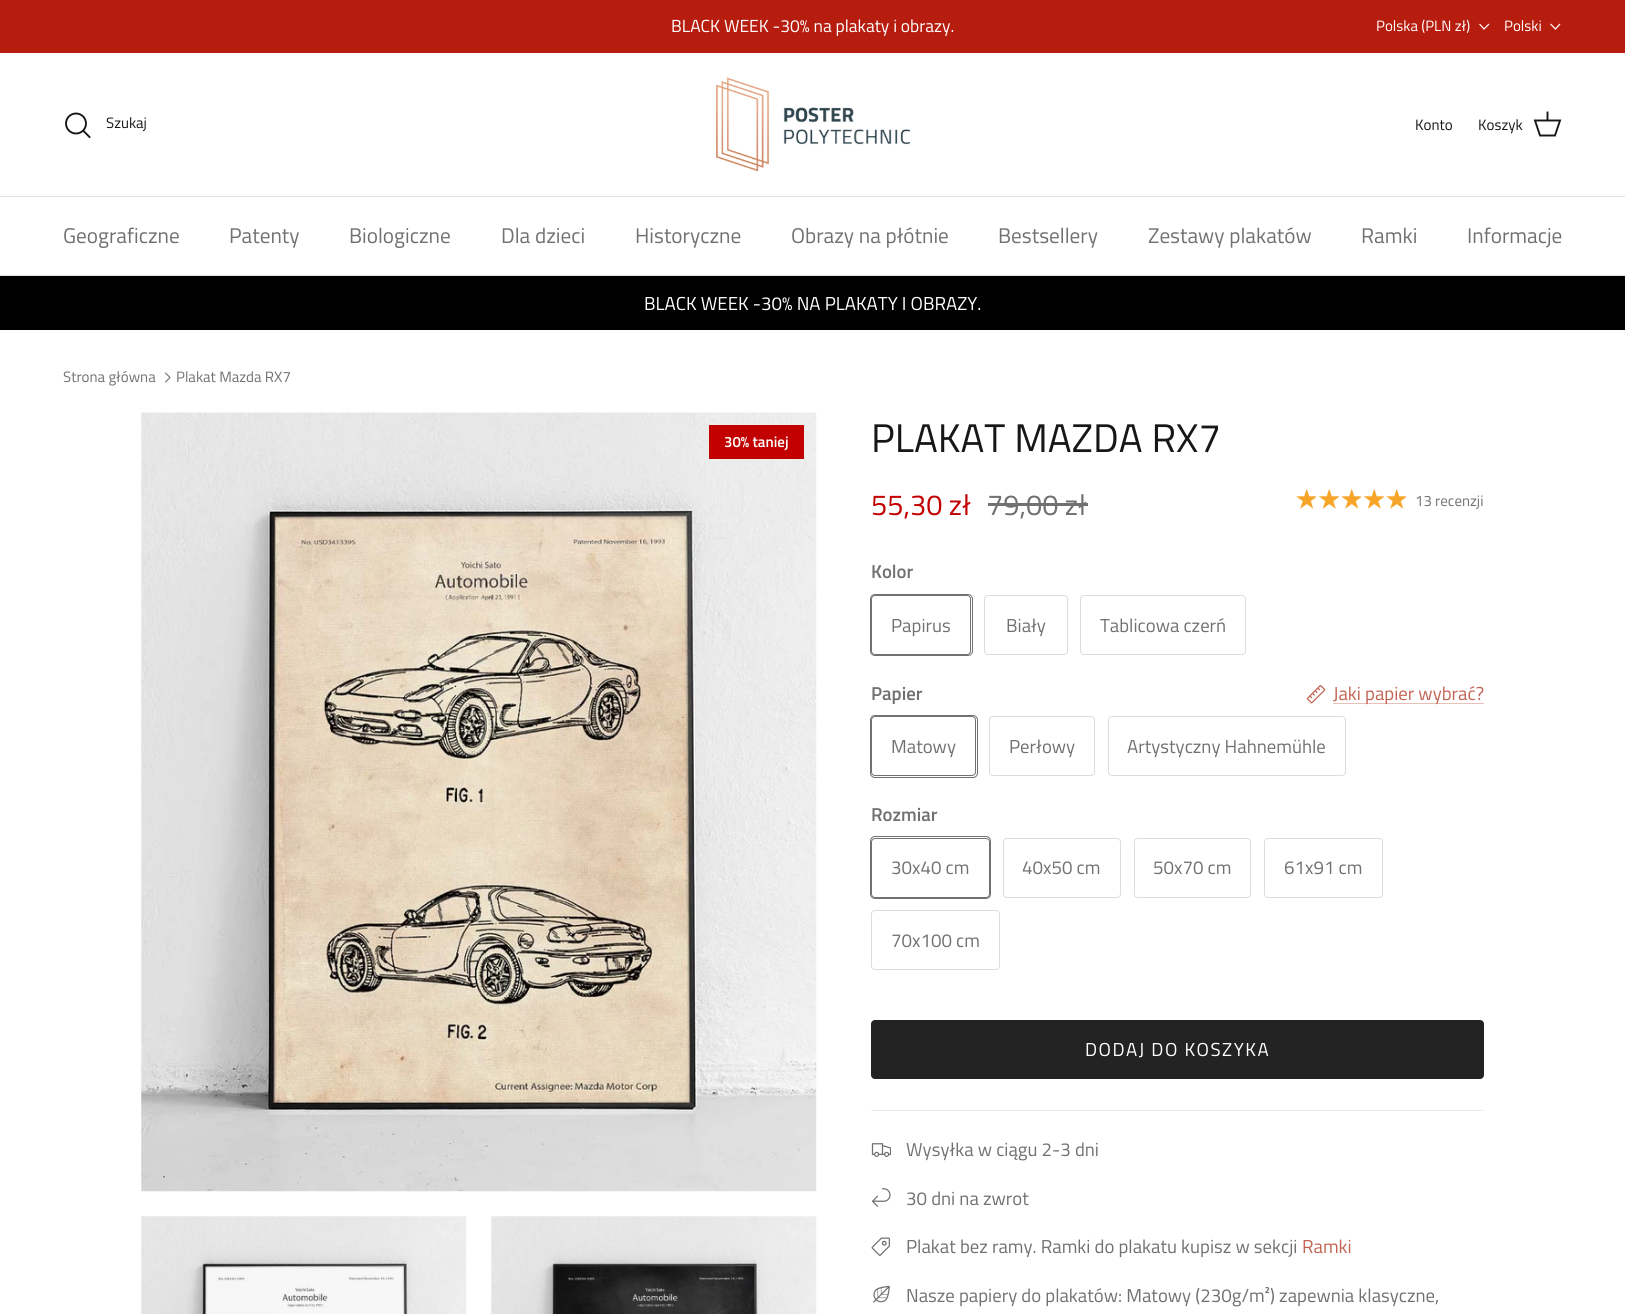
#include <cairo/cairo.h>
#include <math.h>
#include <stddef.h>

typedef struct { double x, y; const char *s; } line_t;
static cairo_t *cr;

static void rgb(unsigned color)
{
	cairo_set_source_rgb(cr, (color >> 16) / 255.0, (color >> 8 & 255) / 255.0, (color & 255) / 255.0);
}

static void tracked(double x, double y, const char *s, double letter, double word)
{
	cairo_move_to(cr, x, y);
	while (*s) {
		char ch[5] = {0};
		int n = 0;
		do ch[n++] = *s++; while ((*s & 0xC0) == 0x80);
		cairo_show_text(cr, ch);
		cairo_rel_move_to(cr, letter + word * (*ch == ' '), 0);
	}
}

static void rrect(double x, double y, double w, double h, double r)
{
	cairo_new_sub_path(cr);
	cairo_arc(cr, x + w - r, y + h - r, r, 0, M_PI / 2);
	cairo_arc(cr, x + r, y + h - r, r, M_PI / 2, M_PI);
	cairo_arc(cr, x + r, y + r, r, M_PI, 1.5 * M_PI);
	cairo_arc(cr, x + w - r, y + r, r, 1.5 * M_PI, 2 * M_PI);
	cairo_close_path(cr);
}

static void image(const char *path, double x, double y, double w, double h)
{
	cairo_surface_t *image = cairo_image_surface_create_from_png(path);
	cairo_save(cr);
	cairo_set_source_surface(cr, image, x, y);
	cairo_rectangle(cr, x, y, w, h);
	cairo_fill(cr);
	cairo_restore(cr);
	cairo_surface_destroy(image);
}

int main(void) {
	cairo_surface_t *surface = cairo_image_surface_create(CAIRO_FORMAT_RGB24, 1625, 1314);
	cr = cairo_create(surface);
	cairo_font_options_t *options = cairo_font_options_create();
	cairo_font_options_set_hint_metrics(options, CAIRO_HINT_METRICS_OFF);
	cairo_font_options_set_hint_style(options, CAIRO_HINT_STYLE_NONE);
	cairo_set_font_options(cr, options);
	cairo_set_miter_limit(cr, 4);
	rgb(0xffffff);
	cairo_paint(cr);
	rgb(0xb61d0f);
	cairo_rectangle(cr, 0, 0, 1625, 53);
	cairo_fill(cr);
	cairo_new_path(cr);
	cairo_move_to(cr, 1489, 24);
	cairo_line_to(cr, 1484, 29);
	cairo_line_to(cr, 1479.5, 24);
	rgb(0xffffff);
	cairo_set_line_width(cr, 1.2);
	cairo_stroke(cr);
	cairo_new_path(cr);
	cairo_move_to(cr, 1560, 24);
	cairo_line_to(cr, 1555.5, 29);
	cairo_line_to(cr, 1550.5, 24);
	cairo_stroke(cr);
	rgb(0xdfe3e8);
	cairo_rectangle(cr, 0, 196, 1625, 1);
	cairo_fill(cr);
	cairo_arc(cr, 76, 123.5, 10, 0, 2 * M_PI);
	rgb(0x171717);
	cairo_set_line_width(cr, 1.9);
	cairo_stroke(cr);
	cairo_new_path(cr);
	cairo_move_to(cr, 83.5, 131);
	cairo_line_to(cr, 89.5, 137);
	cairo_set_line_cap(cr, CAIRO_LINE_CAP_SQUARE);
	cairo_stroke(cr);
	image("img/1.png", 716, 77, 194, 95);
	cairo_new_path(cr);
	cairo_move_to(cr, 1535, 120.5);
	cairo_line_to(cr, 1560, 120.5);
	cairo_line_to(cr, 1555, 135.5);
	cairo_line_to(cr, 1540, 135.5);
	cairo_close_path(cr);
	cairo_set_line_cap(cr, CAIRO_LINE_CAP_BUTT);
	cairo_stroke(cr);
	cairo_new_path(cr);
	cairo_move_to(cr, 1547.5, 120);
	cairo_line_to(cr, 1547.5, 112.5);
	cairo_set_line_cap(cr, CAIRO_LINE_CAP_SQUARE);
	cairo_stroke(cr);
	rgb(0xdfe3e8);
	cairo_rectangle(cr, 0, 275, 1625, 1);
	cairo_fill(cr);
	rgb(0x000000);
	cairo_rectangle(cr, 0, 276, 1625, 54);
	cairo_fill(cr);
	cairo_new_path(cr);
	cairo_move_to(cr, 165.5, 382);
	cairo_line_to(cr, 170, 377.5);
	cairo_line_to(cr, 165.5, 373);
	rgb(0x707173);
	cairo_set_line_width(cr, 1.1);
	cairo_set_line_cap(cr, CAIRO_LINE_CAP_ROUND);
	cairo_set_line_join(cr, CAIRO_LINE_JOIN_ROUND);
	cairo_stroke(cr);
	image("img/2.png", 141, 412, 676, 780);
	image("img/3.png", 141, 1216, 326, 98);
	image("img/4.png", 491, 1216, 326, 98);
	rgb(0xc20000);
	cairo_rectangle(cr, 709, 425, 95, 34);
	cairo_fill(cr);
	rgb(0x707173);
	cairo_rectangle(cr, 988, 503, 100, 3);
	cairo_fill(cr);
	image("img/5.png", 1296, 489, 20, 20);
	image("img/6.png", 1319, 489, 20, 20);
	image("img/5.png", 1341, 489, 20, 20);
	image("img/6.png", 1364, 489, 20, 20);
	image("img/5.png", 1386, 489, 20, 20);
	image("img/7.png", 1296, 489, 20, 20);
	image("img/8.png", 1319, 489, 20, 20);
	image("img/7.png", 1341, 489, 20, 20);
	image("img/8.png", 1364, 489, 20, 20);
	image("img/7.png", 1386, 489, 20, 20);
	rrect(870.5, 594.5, 102, 61, 4.5);
	cairo_set_line_width(cr, 1);
	cairo_set_line_cap(cr, CAIRO_LINE_CAP_BUTT);
	cairo_set_line_join(cr, CAIRO_LINE_JOIN_MITER);
	cairo_stroke(cr);
	rgb(0xffffff);
	rrect(871.5, 595.5, 99, 59, 3.5);
	cairo_fill_preserve(cr);
	rgb(0x707173);
	cairo_stroke(cr);
	rrect(984.5, 595.5, 83, 59, 3.5);
	rgb(0xdbdcdc);
	cairo_stroke(cr);
	rrect(1080.5, 595.5, 165, 59, 3.5);
	cairo_stroke(cr);
	image("img/9.png", 1306, 685, 20, 19);
	rgb(0xe6c1ba);
	cairo_rectangle(cr, 1333, 703, 151, 1);
	cairo_fill(cr);
	rrect(870.5, 715.5, 107, 62, 4.5);
	rgb(0x707173);
	cairo_stroke(cr);
	rgb(0xffffff);
	rrect(871.5, 716.5, 104, 59, 3.5);
	cairo_fill_preserve(cr);
	rgb(0x707173);
	cairo_stroke(cr);
	rrect(989.5, 716.5, 105, 59, 3.5);
	rgb(0xdbdcdc);
	cairo_stroke(cr);
	rrect(1108.5, 716.5, 237, 59, 3.5);
	cairo_stroke(cr);
	rrect(870.5, 836.5, 120, 62, 4.5);
	rgb(0x707173);
	cairo_stroke(cr);
	rgb(0xffffff);
	rrect(871.5, 838.5, 118, 59, 3.5);
	cairo_fill_preserve(cr);
	rgb(0x707173);
	cairo_stroke(cr);
	rrect(1003.5, 838.5, 117, 59, 3.5);
	rgb(0xdbdcdc);
	cairo_stroke(cr);
	rrect(1134.5, 838.5, 116, 59, 3.5);
	cairo_stroke(cr);
	rrect(1264.5, 838.5, 118, 59, 3.5);
	cairo_stroke(cr);
	rrect(871.5, 910.5, 128, 59, 3.5);
	cairo_stroke(cr);
	rgb(0x232323);
	rrect(871.5, 1020.5, 612, 58, 3.5);
	cairo_fill_preserve(cr);
	cairo_stroke(cr);
	rgb(0xebebeb);
	cairo_rectangle(cr, 871, 1110, 613, 1);
	cairo_fill(cr);
	image("img/10.png", 871, 1143, 20, 14);
	image("img/11.png", 871, 1188, 20, 19);
	image("img/12.png", 871, 1237, 19, 19);
	image("img/13.png", 873, 1285, 17, 18);
	cairo_select_font_face(cr, "Titillium Web", CAIRO_FONT_SLANT_NORMAL, CAIRO_FONT_WEIGHT_NORMAL);
	cairo_set_font_size(cr, 17.5);
	rgb(0xffffff);
	cairo_move_to(cr, 671, 32);
	cairo_show_text(cr, "BLACK WEEK -30% na plakaty i obrazy.");
	cairo_set_font_size(cr, 15);
	cairo_move_to(cr, 1376, 31);
	cairo_show_text(cr, "Polska (PLN zł)");
	cairo_move_to(cr, 1504, 31);
	cairo_show_text(cr, "Polski");
	rgb(0x171717);
	{
		static const line_t items[] = {
			{106, 128, "Szukaj"},
			{1415, 130, "Konto"},
			{1478, 130, "Koszyk"},
		};
		for (size_t i = 0; i < sizeof items / sizeof *items; i++) {
			cairo_move_to(cr, items[i].x, items[i].y);
			cairo_show_text(cr, items[i].s);
		}
	}
	cairo_set_font_size(cr, 21.25);
	rgb(0x707173);
	{
		static const line_t items[] = {
			{63, 243, "Geograficzne"},
			{229, 243, "Patenty"},
			{349, 243, "Biologiczne"},
			{501, 243, "Dla dzieci"},
			{635, 243, "Historyczne"},
			{791, 243, "Obrazy na płótnie"},
			{998, 243, "Bestsellery"},
			{1148, 243, "Zestawy plakatów"},
			{1361, 243, "Ramki"},
			{1467, 243, "Informacje"},
		};
		for (size_t i = 0; i < sizeof items / sizeof *items; i++) {
			cairo_move_to(cr, items[i].x, items[i].y);
			cairo_show_text(cr, items[i].s);
		}
	}
	cairo_set_font_size(cr, 18.75);
	rgb(0xffffff);
	cairo_move_to(cr, 644, 310);
	cairo_show_text(cr, "BLACK WEEK -30% NA PLAKATY I OBRAZY.");
	cairo_set_font_size(cr, 15);
	rgb(0x707173);
	cairo_move_to(cr, 63, 382);
	cairo_show_text(cr, "Strona główna");
	cairo_move_to(cr, 176, 382);
	cairo_show_text(cr, "Plakat Mazda RX7");
	cairo_select_font_face(cr, "Titillium Web SemiBold", CAIRO_FONT_SLANT_NORMAL, CAIRO_FONT_WEIGHT_NORMAL);
	rgb(0xffffff);
	cairo_move_to(cr, 724, 447);
	cairo_show_text(cr, "30% taniej");
	cairo_select_font_face(cr, "Titillium Web", CAIRO_FONT_SLANT_NORMAL, CAIRO_FONT_WEIGHT_NORMAL);
	cairo_set_font_size(cr, 40);
	rgb(0x171717);
	cairo_move_to(cr, 871, 452);
	cairo_show_text(cr, "PLAKAT MAZDA RX7");
	cairo_set_font_size(cr, 29);
	rgb(0xc20000);
	cairo_move_to(cr, 871, 515);
	cairo_show_text(cr, "55,30 zł");
	rgb(0x707173);
	cairo_move_to(cr, 987, 515);
	cairo_show_text(cr, "79,00 zł");
	cairo_set_font_size(cr, 15);
	cairo_move_to(cr, 1415, 506);
	cairo_show_text(cr, "13 recenzji");
	cairo_select_font_face(cr, "Titillium Web SemiBold", CAIRO_FONT_SLANT_NORMAL, CAIRO_FONT_WEIGHT_NORMAL);
	cairo_set_font_size(cr, 18.75);
	cairo_move_to(cr, 871, 578);
	cairo_show_text(cr, "Kolor");
	cairo_select_font_face(cr, "Titillium Web", CAIRO_FONT_SLANT_NORMAL, CAIRO_FONT_WEIGHT_NORMAL);
	{
		static const line_t items[] = {
			{891, 632, "Papirus"},
			{1006, 632, "Biały"},
			{1100, 632, "Tablicowa czerń"},
		};
		for (size_t i = 0; i < sizeof items / sizeof *items; i++) {
			cairo_move_to(cr, items[i].x, items[i].y);
			cairo_show_text(cr, items[i].s);
		}
	}
	cairo_select_font_face(cr, "Titillium Web SemiBold", CAIRO_FONT_SLANT_NORMAL, CAIRO_FONT_WEIGHT_NORMAL);
	cairo_move_to(cr, 871, 700);
	cairo_show_text(cr, "Papier");
	cairo_select_font_face(cr, "Titillium Web", CAIRO_FONT_SLANT_NORMAL, CAIRO_FONT_WEIGHT_NORMAL);
	rgb(0xc16452);
	cairo_move_to(cr, 1333, 700);
	cairo_show_text(cr, "Jaki papier wybrać?");
	rgb(0x707173);
	{
		static const line_t items[] = {
			{891, 753, "Matowy"},
			{1009, 753, "Perłowy"},
			{1127, 753, "Artystyczny Hahnemühle"},
		};
		for (size_t i = 0; i < sizeof items / sizeof *items; i++) {
			cairo_move_to(cr, items[i].x, items[i].y);
			cairo_show_text(cr, items[i].s);
		}
	}
	cairo_select_font_face(cr, "Titillium Web SemiBold", CAIRO_FONT_SLANT_NORMAL, CAIRO_FONT_WEIGHT_NORMAL);
	cairo_move_to(cr, 871, 821);
	cairo_show_text(cr, "Rozmiar");
	cairo_select_font_face(cr, "Titillium Web", CAIRO_FONT_SLANT_NORMAL, CAIRO_FONT_WEIGHT_NORMAL);
	{
		static const line_t items[] = {
			{891, 874, "30x40 cm"},
			{1022, 874, "40x50 cm"},
			{1153, 874, "50x70 cm"},
			{1284, 874, "61x91 cm"},
			{891, 947, "70x100 cm"},
		};
		for (size_t i = 0; i < sizeof items / sizeof *items; i++) {
			cairo_move_to(cr, items[i].x, items[i].y);
			cairo_show_text(cr, items[i].s);
		}
	}
	rgb(0xffffff);
	tracked(1085, 1056, "DODAJ DO KOSZYKA", 1.5, 0);
	rgb(0x707173);
	{
		static const line_t items[] = {
			{906, 1156, "Wysyłka w ciągu 2-3 dni"},
			{906, 1205, "30 dni na zwrot"},
			{906, 1253, "Plakat bez ramy. Ramki do plakatu kupisz w sekcji"},
		};
		for (size_t i = 0; i < sizeof items / sizeof *items; i++) {
			cairo_move_to(cr, items[i].x, items[i].y);
			cairo_show_text(cr, items[i].s);
		}
	}
	rgb(0xc16452);
	cairo_move_to(cr, 1302, 1253);
	cairo_show_text(cr, "Ramki");
	rgb(0x707173);
	cairo_move_to(cr, 906, 1302);
	cairo_show_text(cr, "Nasze papiery do plakatów: Matowy (230g/m²) zapewnia klasyczne,");
	cairo_surface_write_to_png(surface, "page.png");
	cairo_font_options_destroy(options);
	cairo_destroy(cr);
	cairo_surface_destroy(surface);
	return 0;
}
